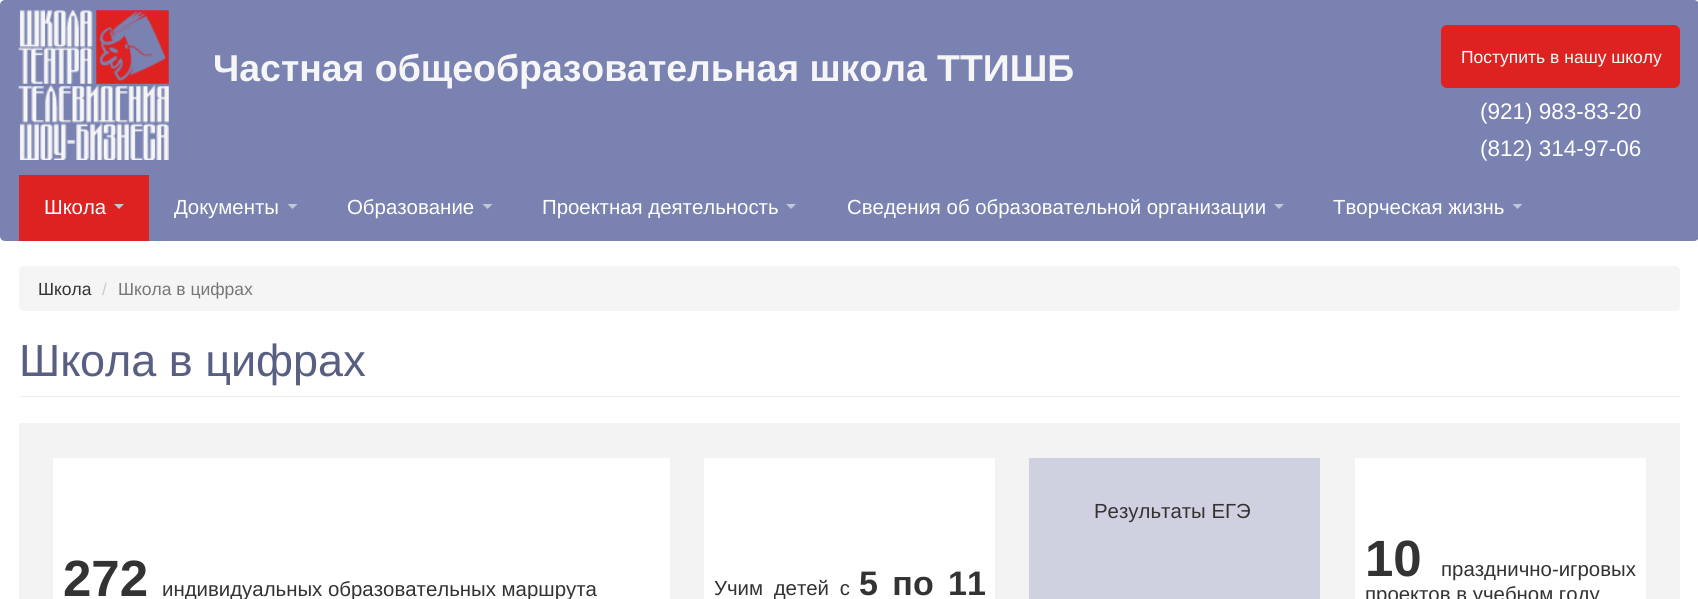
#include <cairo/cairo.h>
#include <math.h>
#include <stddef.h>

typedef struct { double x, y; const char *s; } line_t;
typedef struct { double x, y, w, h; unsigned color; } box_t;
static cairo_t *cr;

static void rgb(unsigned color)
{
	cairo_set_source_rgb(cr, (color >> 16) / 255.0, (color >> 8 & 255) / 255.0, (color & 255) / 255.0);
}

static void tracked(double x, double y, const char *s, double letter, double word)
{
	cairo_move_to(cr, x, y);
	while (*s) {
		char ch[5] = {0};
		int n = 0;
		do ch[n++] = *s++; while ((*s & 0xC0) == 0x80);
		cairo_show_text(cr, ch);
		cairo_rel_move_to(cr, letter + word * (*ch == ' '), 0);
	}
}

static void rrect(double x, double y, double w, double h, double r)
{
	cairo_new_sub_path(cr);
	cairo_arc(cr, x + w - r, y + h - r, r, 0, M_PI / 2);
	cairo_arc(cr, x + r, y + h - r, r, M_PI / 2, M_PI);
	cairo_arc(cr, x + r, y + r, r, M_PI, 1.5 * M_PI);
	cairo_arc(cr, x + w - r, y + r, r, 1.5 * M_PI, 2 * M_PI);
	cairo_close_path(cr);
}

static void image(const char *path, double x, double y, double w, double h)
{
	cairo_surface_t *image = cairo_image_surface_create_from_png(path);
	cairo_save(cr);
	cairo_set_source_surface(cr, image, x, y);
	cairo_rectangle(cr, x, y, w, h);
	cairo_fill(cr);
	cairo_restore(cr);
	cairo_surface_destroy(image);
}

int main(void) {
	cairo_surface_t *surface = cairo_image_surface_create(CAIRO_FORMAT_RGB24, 1698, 599);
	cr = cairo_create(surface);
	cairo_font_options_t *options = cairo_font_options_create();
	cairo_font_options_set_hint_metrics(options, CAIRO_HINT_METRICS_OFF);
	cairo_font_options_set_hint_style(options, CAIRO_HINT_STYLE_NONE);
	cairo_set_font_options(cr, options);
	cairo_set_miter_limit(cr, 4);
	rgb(0xffffff);
	cairo_paint(cr);
	rgb(0x7a82b2);
	rrect(0, 0, 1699, 241, 5);
	cairo_fill(cr);
	image("img/1.png", 18, 10, 151, 150);
	rgb(0xde2121);
	rrect(1441, 25, 239, 63, 6);
	cairo_fill(cr);
	cairo_rectangle(cr, 19, 175, 130, 66);
	cairo_fill(cr);
	rgb(0xc0c7d8);
	cairo_new_path(cr);
	cairo_move_to(cr, 114, 204);
	cairo_line_to(cr, 124, 204);
	cairo_line_to(cr, 119, 209);
	cairo_close_path(cr);
	cairo_fill(cr);
	cairo_new_path(cr);
	cairo_move_to(cr, 287.5, 204);
	cairo_line_to(cr, 297.5, 204);
	cairo_line_to(cr, 292.5, 209);
	cairo_close_path(cr);
	cairo_fill(cr);
	cairo_new_path(cr);
	cairo_move_to(cr, 482.5, 204);
	cairo_line_to(cr, 492.5, 204);
	cairo_line_to(cr, 487.5, 209);
	cairo_close_path(cr);
	cairo_fill(cr);
	cairo_new_path(cr);
	cairo_move_to(cr, 786, 204);
	cairo_line_to(cr, 796, 204);
	cairo_line_to(cr, 791, 209);
	cairo_close_path(cr);
	cairo_fill(cr);
	cairo_new_path(cr);
	cairo_move_to(cr, 1274, 204);
	cairo_line_to(cr, 1284, 204);
	cairo_line_to(cr, 1279, 209);
	cairo_close_path(cr);
	cairo_fill(cr);
	cairo_new_path(cr);
	cairo_move_to(cr, 1512.5, 204);
	cairo_line_to(cr, 1522.5, 204);
	cairo_line_to(cr, 1517.5, 209);
	cairo_close_path(cr);
	cairo_fill(cr);
	rgb(0xf5f5f5);
	rrect(19, 266, 1661, 45, 5);
	cairo_fill(cr);
	{
		static const box_t items[] = {
			{19, 396, 1661, 1, 0xeeeeee},
			{19, 423, 1661, 176, 0xf3f3f3},
			{1029, 458, 291, 141, 0xcfd1e0},
			{53, 458, 617, 141, 0xffffff},
			{704, 458, 291, 141, 0xffffff},
			{1355, 458, 291, 141, 0xffffff},
		};
		for (size_t i = 0; i < sizeof items / sizeof *items; i++) {
			rgb(items[i].color);
			cairo_rectangle(cr, items[i].x, items[i].y, items[i].w, items[i].h);
			cairo_fill(cr);
		}
	}
	cairo_select_font_face(cr, "Arimo", CAIRO_FONT_SLANT_NORMAL, CAIRO_FONT_WEIGHT_BOLD);
	cairo_set_font_size(cr, 37.4);
	rgb(0xf6f6f6);
	cairo_move_to(cr, 213, 81);
	cairo_show_text(cr, "Частная общеобразовательная школа ТТИШБ");
	cairo_select_font_face(cr, "Liberation Sans", CAIRO_FONT_SLANT_NORMAL, CAIRO_FONT_WEIGHT_NORMAL);
	cairo_set_font_size(cr, 17.5);
	rgb(0xffffff);
	cairo_move_to(cr, 1461, 63);
	cairo_show_text(cr, "Поступить в нашу школу");
	cairo_set_font_size(cr, 22.5);
	cairo_move_to(cr, 1480, 119);
	cairo_show_text(cr, "(921) 983-83-20");
	cairo_move_to(cr, 1480, 156);
	cairo_show_text(cr, "(812) 314-97-06");
	cairo_select_font_face(cr, "Arimo", CAIRO_FONT_SLANT_NORMAL, CAIRO_FONT_WEIGHT_NORMAL);
	cairo_set_font_size(cr, 20.4);
	{
		static const line_t items[] = {
			{44, 214, "Школа"},
			{174, 214, "Документы"},
			{347, 214, "Образование"},
			{542, 214, "Проектная деятельность"},
			{847, 214, "Сведения об образовательной организации"},
			{1333, 214, "Творческая жизнь"},
		};
		for (size_t i = 0; i < sizeof items / sizeof *items; i++) {
			cairo_move_to(cr, items[i].x, items[i].y);
			cairo_show_text(cr, items[i].s);
		}
	}
	cairo_select_font_face(cr, "Liberation Sans", CAIRO_FONT_SLANT_NORMAL, CAIRO_FONT_WEIGHT_NORMAL);
	cairo_set_font_size(cr, 17.5);
	rgb(0x333333);
	cairo_move_to(cr, 38, 295);
	cairo_show_text(cr, "Школа");
	rgb(0xcccccc);
	cairo_move_to(cr, 102, 295);
	cairo_show_text(cr, "/");
	rgb(0x777777);
	cairo_move_to(cr, 118, 295);
	cairo_show_text(cr, "Школа в цифрах");
	cairo_set_font_size(cr, 45);
	rgb(0x595f82);
	cairo_move_to(cr, 19, 376);
	cairo_show_text(cr, "Школа в цифрах");
	cairo_set_font_size(cr, 20.4);
	rgb(0x333333);
	cairo_move_to(cr, 1094, 518);
	cairo_show_text(cr, "Результаты ЕГЭ");
	cairo_select_font_face(cr, "Liberation Sans", CAIRO_FONT_SLANT_NORMAL, CAIRO_FONT_WEIGHT_BOLD);
	cairo_set_font_size(cr, 51);
	cairo_move_to(cr, 63, 596);
	cairo_show_text(cr, "272");
	cairo_select_font_face(cr, "Liberation Sans", CAIRO_FONT_SLANT_NORMAL, CAIRO_FONT_WEIGHT_NORMAL);
	cairo_set_font_size(cr, 20.4);
	cairo_move_to(cr, 162, 596);
	cairo_show_text(cr, "индивидуальных образовательных маршрута");
	tracked(714, 595, "Учим детей с", 0, 5);
	cairo_select_font_face(cr, "Liberation Sans", CAIRO_FONT_SLANT_NORMAL, CAIRO_FONT_WEIGHT_BOLD);
	cairo_set_font_size(cr, 34);
	tracked(859, 595, "5 по 11", 0, 5);
	cairo_set_font_size(cr, 51);
	cairo_move_to(cr, 1365, 576);
	cairo_show_text(cr, "10");
	cairo_select_font_face(cr, "Liberation Sans", CAIRO_FONT_SLANT_NORMAL, CAIRO_FONT_WEIGHT_NORMAL);
	cairo_set_font_size(cr, 20.4);
	cairo_move_to(cr, 1441, 576);
	cairo_show_text(cr, "празднично-игровых");
	cairo_move_to(cr, 1365, 601);
	cairo_show_text(cr, "проектов в учебном году");
	cairo_surface_write_to_png(surface, "page.png");
	cairo_font_options_destroy(options);
	cairo_destroy(cr);
	cairo_surface_destroy(surface);
	return 0;
}
